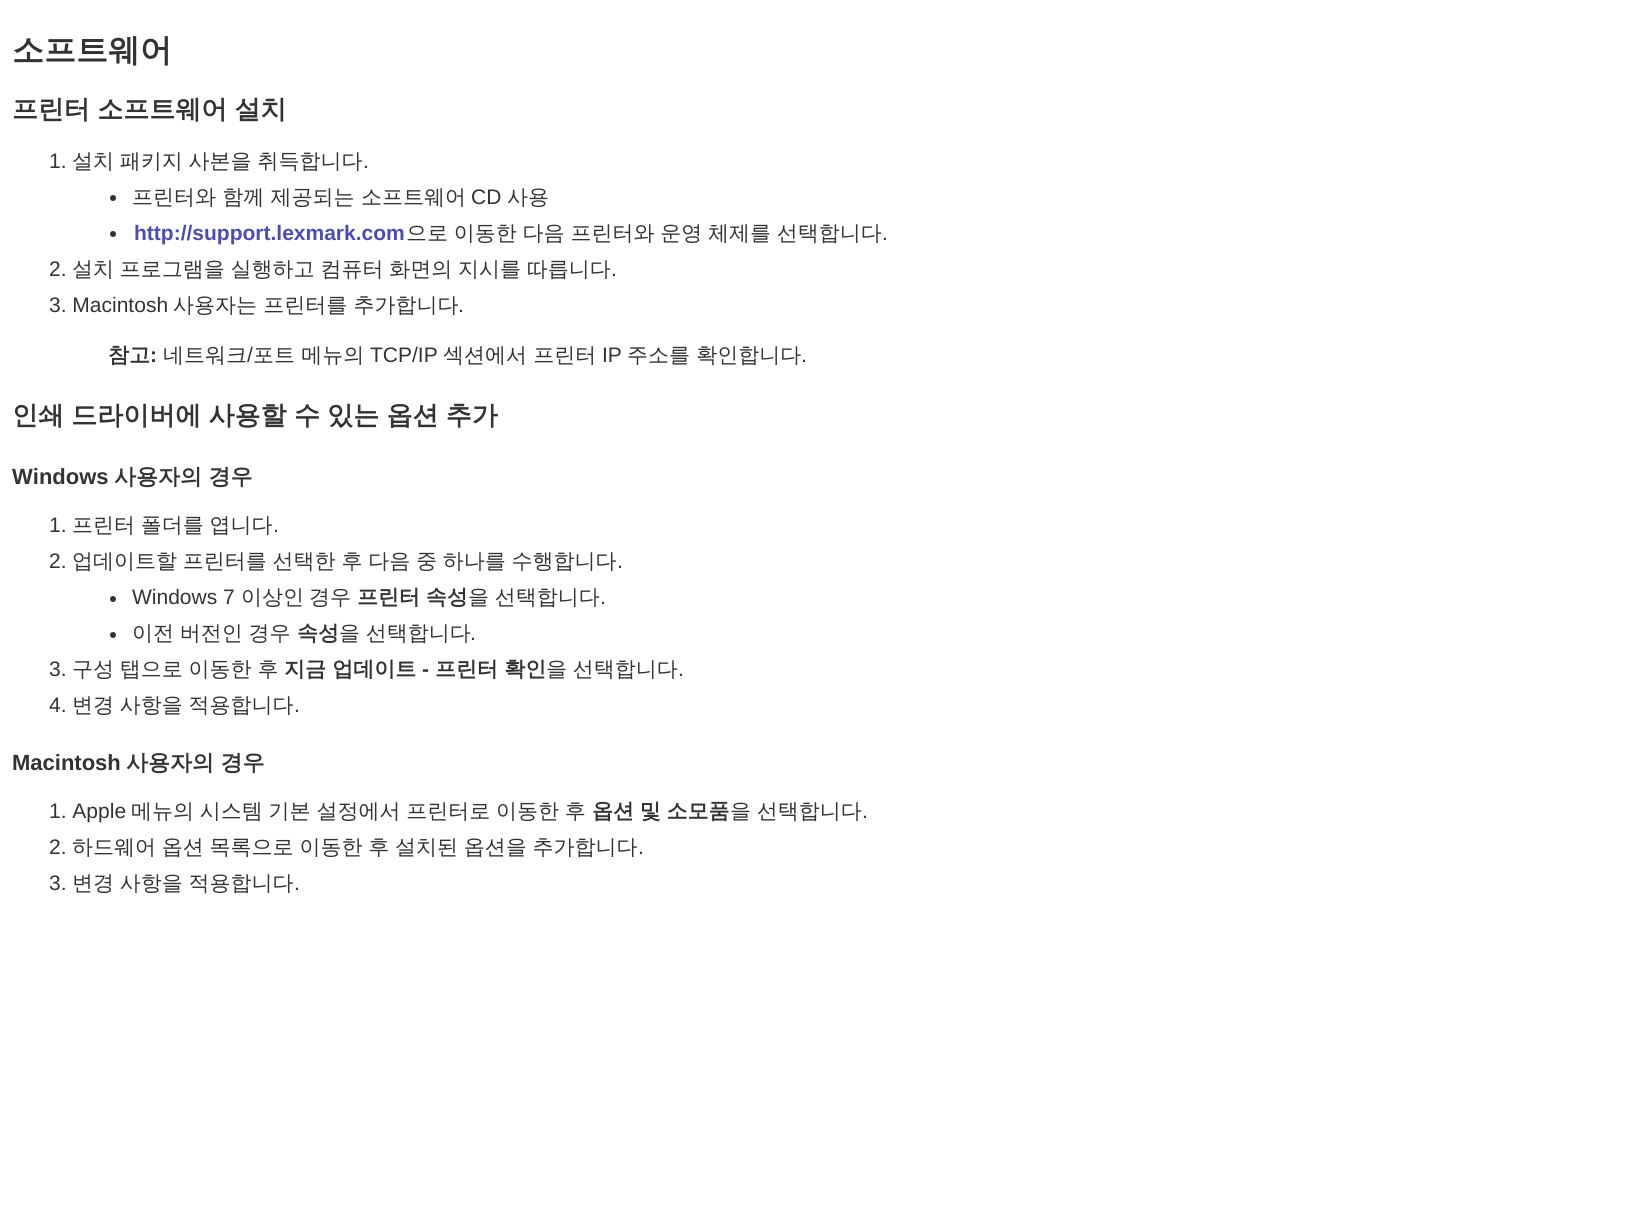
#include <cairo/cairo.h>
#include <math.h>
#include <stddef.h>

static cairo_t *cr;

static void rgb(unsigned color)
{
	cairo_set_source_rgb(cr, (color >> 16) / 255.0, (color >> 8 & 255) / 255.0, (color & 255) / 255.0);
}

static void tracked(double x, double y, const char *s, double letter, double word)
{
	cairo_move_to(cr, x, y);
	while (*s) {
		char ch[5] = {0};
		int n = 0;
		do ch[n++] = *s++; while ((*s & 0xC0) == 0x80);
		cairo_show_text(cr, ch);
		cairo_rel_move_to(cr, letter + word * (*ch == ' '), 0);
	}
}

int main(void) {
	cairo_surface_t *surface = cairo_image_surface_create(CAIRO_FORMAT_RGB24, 1642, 1218);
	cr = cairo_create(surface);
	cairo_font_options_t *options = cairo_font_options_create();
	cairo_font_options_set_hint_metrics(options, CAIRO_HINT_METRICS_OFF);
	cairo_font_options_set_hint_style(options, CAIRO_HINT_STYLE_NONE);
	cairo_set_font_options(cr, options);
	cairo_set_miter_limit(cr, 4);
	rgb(0xffffff);
	cairo_paint(cr);
	rgb(0x333333);
	cairo_arc(cr, 113, 198, 3, 0, 2 * M_PI);
	cairo_fill(cr);
	cairo_arc(cr, 113, 234, 3, 0, 2 * M_PI);
	cairo_fill(cr);
	cairo_arc(cr, 113, 599, 3, 0, 2 * M_PI);
	cairo_fill(cr);
	cairo_arc(cr, 113, 635, 3, 0, 2 * M_PI);
	cairo_fill(cr);
	cairo_select_font_face(cr, "WenQuanYi Zen Hei", CAIRO_FONT_SLANT_NORMAL, CAIRO_FONT_WEIGHT_BOLD);
	cairo_set_font_size(cr, 32);
	cairo_move_to(cr, 12, 61);
	cairo_show_text(cr, "소프트웨어");
	cairo_set_font_size(cr, 26);
	tracked(12, 118, "프린터 소프트웨어 설치", 0, -0.5);
	cairo_select_font_face(cr, "Liberation Sans", CAIRO_FONT_SLANT_NORMAL, CAIRO_FONT_WEIGHT_NORMAL);
	cairo_set_font_size(cr, 21);
	cairo_move_to(cr, 49, 168);
	cairo_show_text(cr, "1.");
	cairo_select_font_face(cr, "WenQuanYi Zen Hei Medium", CAIRO_FONT_SLANT_NORMAL, CAIRO_FONT_WEIGHT_NORMAL);
	tracked(72, 168, "설치 패키지 사본을 취득합니다", 0, -0.5);
	cairo_select_font_face(cr, "Liberation Sans", CAIRO_FONT_SLANT_NORMAL, CAIRO_FONT_WEIGHT_NORMAL);
	cairo_move_to(cr, 363, 168);
	cairo_show_text(cr, ".");
	cairo_select_font_face(cr, "WenQuanYi Zen Hei Medium", CAIRO_FONT_SLANT_NORMAL, CAIRO_FONT_WEIGHT_NORMAL);
	cairo_move_to(cr, 132, 204);
	cairo_show_text(cr, "프린터와 함께 제공되는 소프트웨어");
	cairo_select_font_face(cr, "Liberation Sans", CAIRO_FONT_SLANT_NORMAL, CAIRO_FONT_WEIGHT_NORMAL);
	cairo_move_to(cr, 471, 204);
	cairo_show_text(cr, "CD");
	cairo_select_font_face(cr, "WenQuanYi Zen Hei Medium", CAIRO_FONT_SLANT_NORMAL, CAIRO_FONT_WEIGHT_NORMAL);
	cairo_move_to(cr, 507, 204);
	cairo_show_text(cr, "사용");
	cairo_select_font_face(cr, "Liberation Sans", CAIRO_FONT_SLANT_NORMAL, CAIRO_FONT_WEIGHT_BOLD);
	rgb(0x4d4db0);
	cairo_move_to(cr, 134, 240);
	cairo_show_text(cr, "http://support.lexmark.com");
	cairo_select_font_face(cr, "WenQuanYi Zen Hei Medium", CAIRO_FONT_SLANT_NORMAL, CAIRO_FONT_WEIGHT_NORMAL);
	rgb(0x333333);
	tracked(406, 240, "으로 이동한 다음 프린터와 운영 체제를 선택합니다", 0, -0.5);
	cairo_select_font_face(cr, "Liberation Sans", CAIRO_FONT_SLANT_NORMAL, CAIRO_FONT_WEIGHT_NORMAL);
	cairo_move_to(cr, 882, 240);
	cairo_show_text(cr, ".");
	cairo_move_to(cr, 49, 276);
	cairo_show_text(cr, "2.");
	cairo_select_font_face(cr, "WenQuanYi Zen Hei Medium", CAIRO_FONT_SLANT_NORMAL, CAIRO_FONT_WEIGHT_NORMAL);
	tracked(72, 276, "설치 프로그램을 실행하고 컴퓨터 화면의 지시를 따릅니다", 0, -0.5);
	cairo_select_font_face(cr, "Liberation Sans", CAIRO_FONT_SLANT_NORMAL, CAIRO_FONT_WEIGHT_NORMAL);
	cairo_move_to(cr, 611, 276);
	cairo_show_text(cr, ".");
	cairo_move_to(cr, 49, 312);
	cairo_show_text(cr, "3. Macintosh");
	cairo_select_font_face(cr, "WenQuanYi Zen Hei Medium", CAIRO_FONT_SLANT_NORMAL, CAIRO_FONT_WEIGHT_NORMAL);
	cairo_move_to(cr, 173, 312);
	cairo_show_text(cr, "사용자는 프린터를 추가합니다");
	cairo_select_font_face(cr, "Liberation Sans", CAIRO_FONT_SLANT_NORMAL, CAIRO_FONT_WEIGHT_NORMAL);
	cairo_move_to(cr, 458, 312);
	cairo_show_text(cr, ".");
	cairo_select_font_face(cr, "WenQuanYi Zen Hei", CAIRO_FONT_SLANT_NORMAL, CAIRO_FONT_WEIGHT_BOLD);
	cairo_move_to(cr, 108, 362);
	cairo_show_text(cr, "참고");
	cairo_select_font_face(cr, "Liberation Sans", CAIRO_FONT_SLANT_NORMAL, CAIRO_FONT_WEIGHT_BOLD);
	cairo_move_to(cr, 150, 362);
	cairo_show_text(cr, ":");
	cairo_select_font_face(cr, "WenQuanYi Zen Hei Medium", CAIRO_FONT_SLANT_NORMAL, CAIRO_FONT_WEIGHT_NORMAL);
	cairo_move_to(cr, 163, 362);
	cairo_show_text(cr, "네트워크");
	cairo_select_font_face(cr, "Liberation Sans", CAIRO_FONT_SLANT_NORMAL, CAIRO_FONT_WEIGHT_NORMAL);
	cairo_move_to(cr, 247, 362);
	cairo_show_text(cr, "/");
	cairo_select_font_face(cr, "WenQuanYi Zen Hei Medium", CAIRO_FONT_SLANT_NORMAL, CAIRO_FONT_WEIGHT_NORMAL);
	cairo_move_to(cr, 253, 362);
	cairo_show_text(cr, "포트 메뉴의");
	cairo_select_font_face(cr, "Liberation Sans", CAIRO_FONT_SLANT_NORMAL, CAIRO_FONT_WEIGHT_NORMAL);
	cairo_move_to(cr, 370, 362);
	cairo_show_text(cr, "TCP/IP");
	cairo_select_font_face(cr, "WenQuanYi Zen Hei Medium", CAIRO_FONT_SLANT_NORMAL, CAIRO_FONT_WEIGHT_NORMAL);
	cairo_move_to(cr, 443, 362);
	cairo_show_text(cr, "섹션에서 프린터");
	cairo_select_font_face(cr, "Liberation Sans", CAIRO_FONT_SLANT_NORMAL, CAIRO_FONT_WEIGHT_NORMAL);
	cairo_move_to(cr, 602, 362);
	cairo_show_text(cr, "IP");
	cairo_select_font_face(cr, "WenQuanYi Zen Hei Medium", CAIRO_FONT_SLANT_NORMAL, CAIRO_FONT_WEIGHT_NORMAL);
	cairo_move_to(cr, 627, 362);
	cairo_show_text(cr, "주소를 확인합니다");
	cairo_select_font_face(cr, "Liberation Sans", CAIRO_FONT_SLANT_NORMAL, CAIRO_FONT_WEIGHT_NORMAL);
	cairo_move_to(cr, 801, 362);
	cairo_show_text(cr, ".");
	cairo_select_font_face(cr, "WenQuanYi Zen Hei", CAIRO_FONT_SLANT_NORMAL, CAIRO_FONT_WEIGHT_BOLD);
	cairo_set_font_size(cr, 26);
	tracked(12, 424, "인쇄 드라이버에 사용할 수 있는 옵션 추가", 0, -0.5);
	cairo_select_font_face(cr, "Liberation Sans", CAIRO_FONT_SLANT_NORMAL, CAIRO_FONT_WEIGHT_BOLD);
	cairo_set_font_size(cr, 22);
	cairo_move_to(cr, 12, 484);
	cairo_show_text(cr, "Windows");
	cairo_select_font_face(cr, "WenQuanYi Zen Hei", CAIRO_FONT_SLANT_NORMAL, CAIRO_FONT_WEIGHT_BOLD);
	cairo_move_to(cr, 114, 484);
	cairo_show_text(cr, "사용자의 경우");
	cairo_select_font_face(cr, "Liberation Sans", CAIRO_FONT_SLANT_NORMAL, CAIRO_FONT_WEIGHT_NORMAL);
	cairo_set_font_size(cr, 21);
	cairo_move_to(cr, 49, 532);
	cairo_show_text(cr, "1.");
	cairo_select_font_face(cr, "WenQuanYi Zen Hei Medium", CAIRO_FONT_SLANT_NORMAL, CAIRO_FONT_WEIGHT_NORMAL);
	tracked(72, 532, "프린터 폴더를 엽니다", 0, -0.5);
	cairo_select_font_face(cr, "Liberation Sans", CAIRO_FONT_SLANT_NORMAL, CAIRO_FONT_WEIGHT_NORMAL);
	cairo_move_to(cr, 273, 532);
	cairo_show_text(cr, ".");
	cairo_move_to(cr, 49, 568);
	cairo_show_text(cr, "2.");
	cairo_select_font_face(cr, "WenQuanYi Zen Hei Medium", CAIRO_FONT_SLANT_NORMAL, CAIRO_FONT_WEIGHT_NORMAL);
	tracked(72, 568, "업데이트할 프린터를 선택한 후 다음 중 하나를 수행합니다", 0, -0.5);
	cairo_select_font_face(cr, "Liberation Sans", CAIRO_FONT_SLANT_NORMAL, CAIRO_FONT_WEIGHT_NORMAL);
	cairo_move_to(cr, 617, 568);
	cairo_show_text(cr, ".");
	cairo_move_to(cr, 132, 604);
	cairo_show_text(cr, "Windows 7");
	cairo_select_font_face(cr, "WenQuanYi Zen Hei Medium", CAIRO_FONT_SLANT_NORMAL, CAIRO_FONT_WEIGHT_NORMAL);
	cairo_move_to(cr, 241, 604);
	cairo_show_text(cr, "이상인");
	cairo_move_to(cr, 309, 604);
	cairo_show_text(cr, "경우");
	cairo_select_font_face(cr, "WenQuanYi Zen Hei", CAIRO_FONT_SLANT_NORMAL, CAIRO_FONT_WEIGHT_BOLD);
	tracked(357, 604, "프린터 속성", 0, -0.5);
	cairo_select_font_face(cr, "WenQuanYi Zen Hei Medium", CAIRO_FONT_SLANT_NORMAL, CAIRO_FONT_WEIGHT_NORMAL);
	tracked(468, 604, "을 선택합니다", 0, -0.5);
	cairo_select_font_face(cr, "Liberation Sans", CAIRO_FONT_SLANT_NORMAL, CAIRO_FONT_WEIGHT_NORMAL);
	cairo_move_to(cr, 600, 604);
	cairo_show_text(cr, ".");
	cairo_select_font_face(cr, "WenQuanYi Zen Hei Medium", CAIRO_FONT_SLANT_NORMAL, CAIRO_FONT_WEIGHT_NORMAL);
	tracked(132, 640, "이전 버전인 경우", 0, -0.5);
	cairo_select_font_face(cr, "WenQuanYi Zen Hei", CAIRO_FONT_SLANT_NORMAL, CAIRO_FONT_WEIGHT_BOLD);
	cairo_move_to(cr, 297, 640);
	cairo_show_text(cr, "속성");
	cairo_select_font_face(cr, "WenQuanYi Zen Hei Medium", CAIRO_FONT_SLANT_NORMAL, CAIRO_FONT_WEIGHT_NORMAL);
	tracked(339, 640, "을 선택합니다", 0, -0.5);
	cairo_select_font_face(cr, "Liberation Sans", CAIRO_FONT_SLANT_NORMAL, CAIRO_FONT_WEIGHT_NORMAL);
	cairo_move_to(cr, 470, 640);
	cairo_show_text(cr, ".");
	cairo_move_to(cr, 49, 676);
	cairo_show_text(cr, "3.");
	cairo_select_font_face(cr, "WenQuanYi Zen Hei Medium", CAIRO_FONT_SLANT_NORMAL, CAIRO_FONT_WEIGHT_NORMAL);
	tracked(72, 676, "구성 탭으로 이동한 후", 0, -0.5);
	cairo_select_font_face(cr, "WenQuanYi Zen Hei", CAIRO_FONT_SLANT_NORMAL, CAIRO_FONT_WEIGHT_BOLD);
	cairo_move_to(cr, 284, 676);
	cairo_show_text(cr, "지금 업데이트");
	cairo_select_font_face(cr, "Liberation Sans", CAIRO_FONT_SLANT_NORMAL, CAIRO_FONT_WEIGHT_BOLD);
	cairo_move_to(cr, 422, 676);
	cairo_show_text(cr, "-");
	cairo_select_font_face(cr, "WenQuanYi Zen Hei", CAIRO_FONT_SLANT_NORMAL, CAIRO_FONT_WEIGHT_BOLD);
	cairo_move_to(cr, 435, 676);
	cairo_show_text(cr, "프린터 확인");
	cairo_select_font_face(cr, "WenQuanYi Zen Hei Medium", CAIRO_FONT_SLANT_NORMAL, CAIRO_FONT_WEIGHT_NORMAL);
	tracked(546, 676, "을 선택합니다", 0, -0.5);
	cairo_select_font_face(cr, "Liberation Sans", CAIRO_FONT_SLANT_NORMAL, CAIRO_FONT_WEIGHT_NORMAL);
	cairo_move_to(cr, 678, 676);
	cairo_show_text(cr, ".");
	cairo_move_to(cr, 49, 712);
	cairo_show_text(cr, "4.");
	cairo_select_font_face(cr, "WenQuanYi Zen Hei Medium", CAIRO_FONT_SLANT_NORMAL, CAIRO_FONT_WEIGHT_NORMAL);
	tracked(72, 712, "변경 사항을 적용합니다", 0, -0.5);
	cairo_select_font_face(cr, "Liberation Sans", CAIRO_FONT_SLANT_NORMAL, CAIRO_FONT_WEIGHT_NORMAL);
	cairo_move_to(cr, 294, 712);
	cairo_show_text(cr, ".");
	cairo_select_font_face(cr, "Liberation Sans", CAIRO_FONT_SLANT_NORMAL, CAIRO_FONT_WEIGHT_BOLD);
	cairo_set_font_size(cr, 22);
	cairo_move_to(cr, 12, 770);
	cairo_show_text(cr, "Macintosh");
	cairo_select_font_face(cr, "WenQuanYi Zen Hei", CAIRO_FONT_SLANT_NORMAL, CAIRO_FONT_WEIGHT_BOLD);
	cairo_move_to(cr, 126, 770);
	cairo_show_text(cr, "사용자의 경우");
	cairo_select_font_face(cr, "Liberation Sans", CAIRO_FONT_SLANT_NORMAL, CAIRO_FONT_WEIGHT_NORMAL);
	cairo_set_font_size(cr, 21);
	cairo_move_to(cr, 49, 818);
	cairo_show_text(cr, "1. Apple");
	cairo_select_font_face(cr, "WenQuanYi Zen Hei Medium", CAIRO_FONT_SLANT_NORMAL, CAIRO_FONT_WEIGHT_NORMAL);
	tracked(131, 818, "메뉴의 시스템 기본 설정에서 프린터로 이동한 후", 0, -0.5);
	cairo_select_font_face(cr, "WenQuanYi Zen Hei", CAIRO_FONT_SLANT_NORMAL, CAIRO_FONT_WEIGHT_BOLD);
	tracked(592, 818, "옵션 및 소모품", 0, -0.5);
	cairo_select_font_face(cr, "WenQuanYi Zen Hei Medium", CAIRO_FONT_SLANT_NORMAL, CAIRO_FONT_WEIGHT_NORMAL);
	tracked(730, 818, "을 선택합니다", 0, -0.5);
	cairo_select_font_face(cr, "Liberation Sans", CAIRO_FONT_SLANT_NORMAL, CAIRO_FONT_WEIGHT_NORMAL);
	cairo_move_to(cr, 862, 818);
	cairo_show_text(cr, ".");
	cairo_move_to(cr, 49, 854);
	cairo_show_text(cr, "2.");
	cairo_select_font_face(cr, "WenQuanYi Zen Hei Medium", CAIRO_FONT_SLANT_NORMAL, CAIRO_FONT_WEIGHT_NORMAL);
	tracked(72, 854, "하드웨어 옵션 목록으로 이동한 후 설치된 옵션을 추가합니다", 0, -0.5);
	cairo_select_font_face(cr, "Liberation Sans", CAIRO_FONT_SLANT_NORMAL, CAIRO_FONT_WEIGHT_NORMAL);
	cairo_move_to(cr, 638, 854);
	cairo_show_text(cr, ".");
	cairo_move_to(cr, 49, 890);
	cairo_show_text(cr, "3.");
	cairo_select_font_face(cr, "WenQuanYi Zen Hei Medium", CAIRO_FONT_SLANT_NORMAL, CAIRO_FONT_WEIGHT_NORMAL);
	tracked(72, 890, "변경 사항을 적용합니다", 0, -0.5);
	cairo_select_font_face(cr, "Liberation Sans", CAIRO_FONT_SLANT_NORMAL, CAIRO_FONT_WEIGHT_NORMAL);
	cairo_move_to(cr, 294, 890);
	cairo_show_text(cr, ".");
	cairo_surface_write_to_png(surface, "page.png");
	cairo_font_options_destroy(options);
	cairo_destroy(cr);
	cairo_surface_destroy(surface);
	return 0;
}
